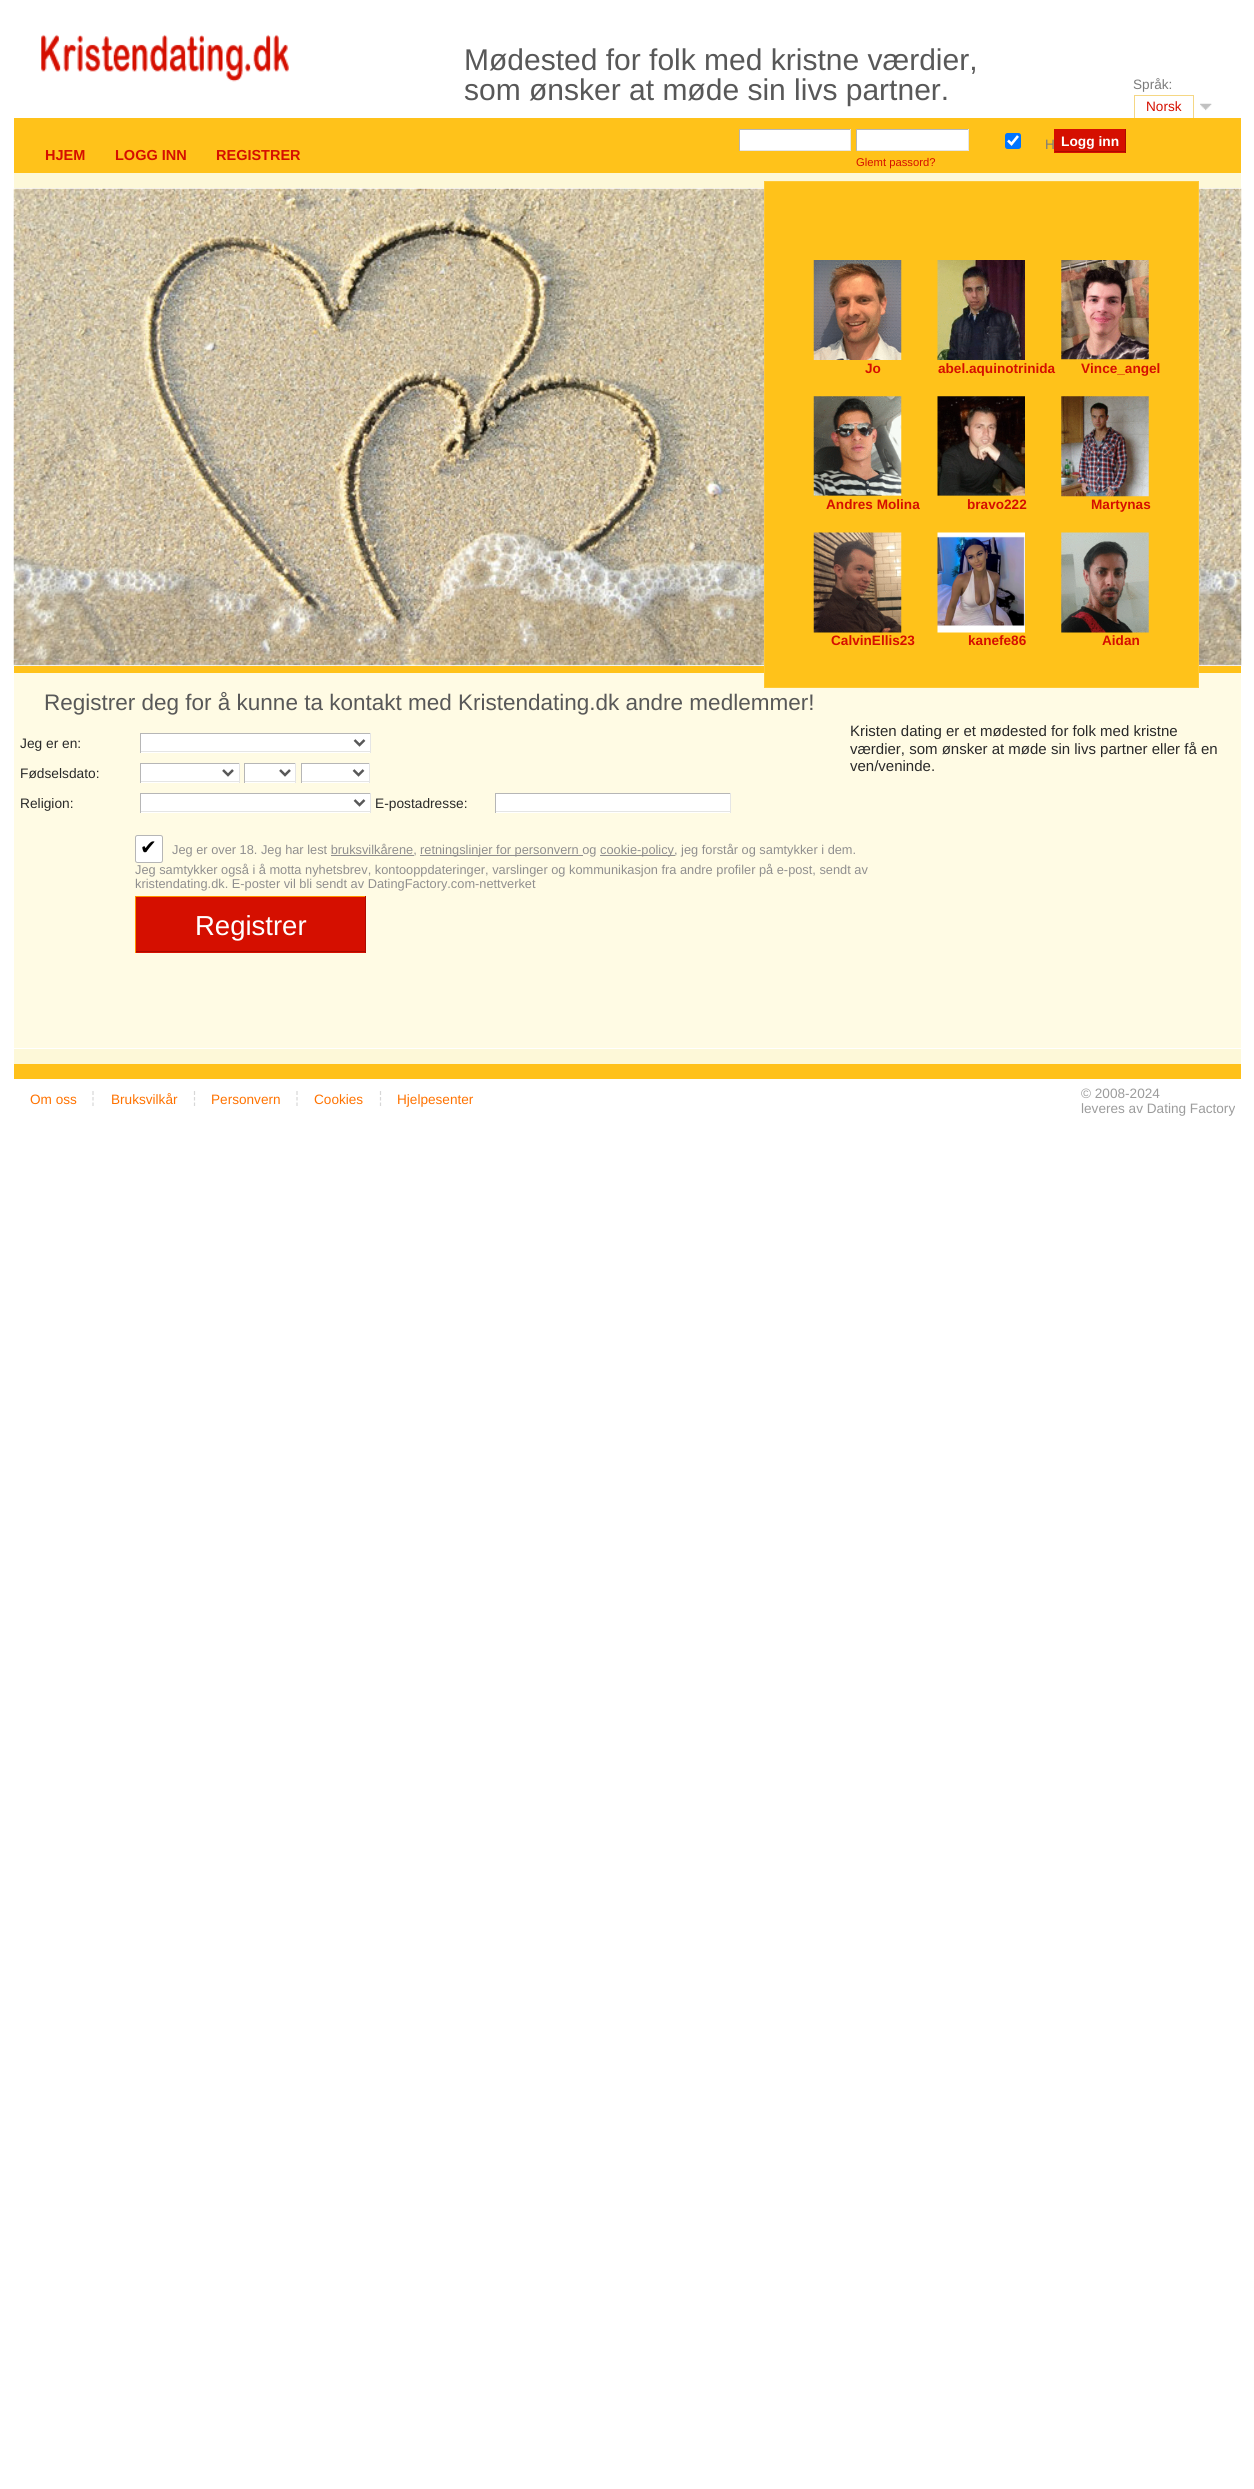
#include <cairo/cairo.h>
#include <math.h>
#include <stddef.h>

typedef struct { double x, y; const char *s; } line_t;
typedef struct { double x, y, w, h; unsigned color; } box_t;
static cairo_t *cr;

static void rgb(unsigned color)
{
	cairo_set_source_rgb(cr, (color >> 16) / 255.0, (color >> 8 & 255) / 255.0, (color & 255) / 255.0);
}

static void rrect(double x, double y, double w, double h, double r)
{
	cairo_new_sub_path(cr);
	cairo_arc(cr, x + w - r, y + h - r, r, 0, M_PI / 2);
	cairo_arc(cr, x + r, y + h - r, r, M_PI / 2, M_PI);
	cairo_arc(cr, x + r, y + r, r, M_PI, 1.5 * M_PI);
	cairo_arc(cr, x + w - r, y + r, r, 1.5 * M_PI, 2 * M_PI);
	cairo_close_path(cr);
}

static void image(const char *path, double x, double y, double w, double h)
{
	cairo_surface_t *image = cairo_image_surface_create_from_png(path);
	cairo_save(cr);
	cairo_set_source_surface(cr, image, x, y);
	cairo_rectangle(cr, x, y, w, h);
	cairo_fill(cr);
	cairo_restore(cr);
	cairo_surface_destroy(image);
}

int main(void) {
	cairo_surface_t *surface = cairo_image_surface_create(CAIRO_FORMAT_RGB24, 1254, 2489);
	cr = cairo_create(surface);
	cairo_font_options_t *options = cairo_font_options_create();
	cairo_font_options_set_hint_metrics(options, CAIRO_HINT_METRICS_OFF);
	cairo_font_options_set_hint_style(options, CAIRO_HINT_STYLE_NONE);
	cairo_set_font_options(cr, options);
	cairo_set_miter_limit(cr, 4);
	rgb(0xffffff);
	cairo_paint(cr);
	image("img/1.png", 41, 34, 248, 48);
	{
		static const box_t items[] = {
			{1134, 95, 60, 1, 0xf5d784},
			{1193, 95, 1, 23, 0xf5d784},
			{1134, 95, 1, 23, 0xf5d784},
		};
		for (size_t i = 0; i < sizeof items / sizeof *items; i++) {
			rgb(items[i].color);
			cairo_rectangle(cr, items[i].x, items[i].y, items[i].w, items[i].h);
			cairo_fill(cr);
		}
	}
	image("img/2.png", 1200, 103, 12, 8);
	{
		static const box_t items[] = {
			{14, 118, 1227, 55, 0xffc21a},
			{740, 130, 110, 20, 0xffffff},
			{739, 129, 112, 1, 0xb6b6b6},
			{850, 129, 1, 22, 0xe5e5e5},
			{739, 150, 112, 1, 0xe5e5e5},
			{739, 129, 1, 22, 0xb6b6b6},
			{857, 130, 111, 20, 0xffffff},
			{856, 129, 113, 1, 0xb6b6b6},
			{968, 129, 1, 22, 0xe5e5e5},
			{856, 150, 113, 1, 0xe5e5e5},
			{856, 129, 1, 22, 0xb6b6b6},
		};
		for (size_t i = 0; i < sizeof items / sizeof *items; i++) {
			rgb(items[i].color);
			cairo_rectangle(cr, items[i].x, items[i].y, items[i].w, items[i].h);
			cairo_fill(cr);
		}
	}
	rgb(0x0075ff);
	rrect(1005, 133, 16, 16, 2.5);
	cairo_fill(cr);
	cairo_new_path(cr);
	cairo_move_to(cr, 1008, 140.5);
	cairo_line_to(cr, 1011.5, 144);
	cairo_line_to(cr, 1018, 136);
	rgb(0xffffff);
	cairo_set_line_width(cr, 2.6);
	cairo_stroke(cr);
	{
		static const box_t items[] = {
			{1055, 129, 70, 24, 0xd50f00},
			{1125, 129, 1, 24, 0xaa0c00},
			{1054, 151, 72, 1, 0xaa0c00},
			{1054, 129, 1, 24, 0xd50f00},
			{14, 173, 1227, 15, 0xfdf8d8},
		};
		for (size_t i = 0; i < sizeof items / sizeof *items; i++) {
			rgb(items[i].color);
			cairo_rectangle(cr, items[i].x, items[i].y, items[i].w, items[i].h);
			cairo_fill(cr);
		}
	}
	image("img/12.png", 13, 188, 1229, 479);
	rgb(0xfffbe4);
	cairo_rectangle(cr, 14, 673, 1227, 375);
	cairo_fill(cr);
	rgb(0xffc21a);
	cairo_rectangle(cr, 14, 666, 1227, 7);
	cairo_fill(cr);
	cairo_rectangle(cr, 764.5, 181.5, 434, 506);
	cairo_fill_preserve(cr);
	rgb(0xffc936);
	cairo_set_line_width(cr, 1);
	cairo_stroke(cr);
	image("img/3.png", 813, 260, 89, 100);
	image("img/4.png", 937, 260, 88, 100);
	image("img/5.png", 1061, 260, 88, 100);
	image("img/6.png", 813, 396, 89, 100);
	image("img/7.png", 937, 396, 88, 100);
	image("img/8.png", 1061, 396, 88, 101);
	image("img/9.png", 813, 532, 89, 101);
	image("img/10.png", 937, 532, 88, 101);
	image("img/11.png", 1061, 532, 88, 101);
	{
		static const box_t items[] = {
			{141, 734, 229, 19, 0xffffff},
			{140, 733, 231, 1, 0xb6b6b6},
			{370, 733, 1, 20, 0xe5e5e5},
			{140, 751, 231, 1, 0xe5e5e5},
			{140, 733, 1, 20, 0xb6b6b6},
		};
		for (size_t i = 0; i < sizeof items / sizeof *items; i++) {
			rgb(items[i].color);
			cairo_rectangle(cr, items[i].x, items[i].y, items[i].w, items[i].h);
			cairo_fill(cr);
		}
	}
	cairo_new_path(cr);
	cairo_move_to(cr, 354.5, 740);
	cairo_line_to(cr, 359.5, 745);
	cairo_line_to(cr, 364.5, 740);
	rgb(0x585858);
	cairo_set_line_width(cr, 2.5);
	cairo_stroke(cr);
	{
		static const box_t items[] = {
			{141, 764, 98, 19, 0xffffff},
			{140, 763, 100, 1, 0xb6b6b6},
			{239, 763, 1, 20, 0xe5e5e5},
			{140, 781, 100, 1, 0xe5e5e5},
			{140, 763, 1, 20, 0xb6b6b6},
		};
		for (size_t i = 0; i < sizeof items / sizeof *items; i++) {
			rgb(items[i].color);
			cairo_rectangle(cr, items[i].x, items[i].y, items[i].w, items[i].h);
			cairo_fill(cr);
		}
	}
	cairo_new_path(cr);
	cairo_move_to(cr, 223, 770);
	cairo_line_to(cr, 228, 775);
	cairo_line_to(cr, 233, 770);
	rgb(0x585858);
	cairo_stroke(cr);
	{
		static const box_t items[] = {
			{245, 764, 50, 19, 0xffffff},
			{244, 763, 52, 1, 0xb6b6b6},
			{295, 763, 1, 20, 0xe5e5e5},
			{244, 781, 52, 1, 0xe5e5e5},
			{244, 763, 1, 20, 0xb6b6b6},
		};
		for (size_t i = 0; i < sizeof items / sizeof *items; i++) {
			rgb(items[i].color);
			cairo_rectangle(cr, items[i].x, items[i].y, items[i].w, items[i].h);
			cairo_fill(cr);
		}
	}
	cairo_new_path(cr);
	cairo_move_to(cr, 280, 770);
	cairo_line_to(cr, 285, 775);
	cairo_line_to(cr, 290, 770);
	rgb(0x585858);
	cairo_stroke(cr);
	{
		static const box_t items[] = {
			{302, 764, 67, 19, 0xffffff},
			{301, 763, 69, 1, 0xb6b6b6},
			{369, 763, 1, 20, 0xe5e5e5},
			{301, 781, 69, 1, 0xe5e5e5},
			{301, 763, 1, 20, 0xb6b6b6},
		};
		for (size_t i = 0; i < sizeof items / sizeof *items; i++) {
			rgb(items[i].color);
			cairo_rectangle(cr, items[i].x, items[i].y, items[i].w, items[i].h);
			cairo_fill(cr);
		}
	}
	cairo_new_path(cr);
	cairo_move_to(cr, 353.5, 770);
	cairo_line_to(cr, 358.5, 775);
	cairo_line_to(cr, 363.5, 770);
	rgb(0x585858);
	cairo_stroke(cr);
	{
		static const box_t items[] = {
			{141, 794, 229, 19, 0xffffff},
			{140, 793, 231, 1, 0xb6b6b6},
			{370, 793, 1, 20, 0xe5e5e5},
			{140, 811, 231, 1, 0xe5e5e5},
			{140, 793, 1, 20, 0xb6b6b6},
		};
		for (size_t i = 0; i < sizeof items / sizeof *items; i++) {
			rgb(items[i].color);
			cairo_rectangle(cr, items[i].x, items[i].y, items[i].w, items[i].h);
			cairo_fill(cr);
		}
	}
	cairo_new_path(cr);
	cairo_move_to(cr, 354.5, 800);
	cairo_line_to(cr, 359.5, 805);
	cairo_line_to(cr, 364.5, 800);
	rgb(0x585858);
	cairo_stroke(cr);
	{
		static const box_t items[] = {
			{496, 794, 234, 19, 0xffffff},
			{495, 793, 236, 1, 0xb6b6b6},
			{730, 793, 1, 20, 0xe5e5e5},
			{495, 811, 236, 1, 0xe5e5e5},
			{495, 793, 1, 20, 0xb6b6b6},
		};
		for (size_t i = 0; i < sizeof items / sizeof *items; i++) {
			rgb(items[i].color);
			cairo_rectangle(cr, items[i].x, items[i].y, items[i].w, items[i].h);
			cairo_fill(cr);
		}
	}
	rgb(0xffffff);
	rrect(135.5, 835.5, 27, 27, 2);
	cairo_fill_preserve(cr);
	rgb(0xb6b6b6);
	cairo_set_line_width(cr, 1);
	cairo_stroke(cr);
	{
		static const box_t items[] = {
			{420, 855, 163, 1, 0x908f8f},
			{600, 855, 75, 1, 0x908f8f},
			{331, 855, 83, 1, 0x908f8f},
			{136, 897, 229, 56, 0xd50f00},
			{135, 896, 231, 1, 0xff9100},
			{365, 896, 1, 57, 0xaa0c00},
			{135, 951, 231, 1, 0xaa0c00},
			{135, 896, 1, 57, 0xff9100},
			{14, 1049, 1227, 15, 0xfdf8d8},
			{14, 1064, 1227, 15, 0xffc11a},
		};
		for (size_t i = 0; i < sizeof items / sizeof *items; i++) {
			rgb(items[i].color);
			cairo_rectangle(cr, items[i].x, items[i].y, items[i].w, items[i].h);
			cairo_fill(cr);
		}
	}
	cairo_new_path(cr);
	cairo_move_to(cr, 93, 1091);
	cairo_line_to(cr, 93, 1095);
	cairo_move_to(cr, 93, 1097);
	cairo_line_to(cr, 93, 1100.5);
	cairo_move_to(cr, 93, 1102.5);
	cairo_line_to(cr, 93, 1106);
	rgb(0xd7d7d7);
	cairo_set_line_width(cr, 1.2);
	cairo_stroke(cr);
	cairo_new_path(cr);
	cairo_move_to(cr, 194.5, 1091);
	cairo_line_to(cr, 194.5, 1095);
	cairo_move_to(cr, 194.5, 1097);
	cairo_line_to(cr, 194.5, 1100.5);
	cairo_move_to(cr, 194.5, 1102.5);
	cairo_line_to(cr, 194.5, 1106);
	cairo_stroke(cr);
	cairo_new_path(cr);
	cairo_move_to(cr, 297, 1091);
	cairo_line_to(cr, 297, 1095);
	cairo_move_to(cr, 297, 1097);
	cairo_line_to(cr, 297, 1100.5);
	cairo_move_to(cr, 297, 1102.5);
	cairo_line_to(cr, 297, 1106);
	cairo_stroke(cr);
	cairo_new_path(cr);
	cairo_move_to(cr, 380.5, 1091);
	cairo_line_to(cr, 380.5, 1095);
	cairo_move_to(cr, 380.5, 1097);
	cairo_line_to(cr, 380.5, 1100.5);
	cairo_move_to(cr, 380.5, 1102.5);
	cairo_line_to(cr, 380.5, 1106);
	cairo_stroke(cr);
	cairo_select_font_face(cr, "Liberation Sans", CAIRO_FONT_SLANT_NORMAL, CAIRO_FONT_WEIGHT_NORMAL);
	cairo_set_font_size(cr, 30);
	rgb(0x585858);
	cairo_move_to(cr, 464, 70);
	cairo_show_text(cr, "Mødested for folk med kristne værdier,");
	cairo_move_to(cr, 464, 100);
	cairo_show_text(cr, "som ønsker at møde sin livs partner.");
	cairo_set_font_size(cr, 13.6);
	rgb(0x7b7b7b);
	cairo_move_to(cr, 1133, 89);
	cairo_show_text(cr, "Språk:");
	rgb(0xd50f00);
	cairo_move_to(cr, 1146, 111);
	cairo_show_text(cr, "Norsk");
	cairo_select_font_face(cr, "Liberation Sans", CAIRO_FONT_SLANT_NORMAL, CAIRO_FONT_WEIGHT_BOLD);
	cairo_set_font_size(cr, 14.5);
	{
		static const line_t items[] = {
			{45, 160, "HJEM"},
			{115, 160, "LOGG INN"},
			{216, 160, "REGISTRER"},
		};
		for (size_t i = 0; i < sizeof items / sizeof *items; i++) {
			cairo_move_to(cr, items[i].x, items[i].y);
			cairo_show_text(cr, items[i].s);
		}
	}
	cairo_select_font_face(cr, "Liberation Sans", CAIRO_FONT_SLANT_NORMAL, CAIRO_FONT_WEIGHT_NORMAL);
	cairo_set_font_size(cr, 13.6);
	rgb(0x7b7b7b);
	cairo_move_to(cr, 1045, 149);
	cairo_show_text(cr, "H");
	cairo_select_font_face(cr, "Liberation Sans", CAIRO_FONT_SLANT_NORMAL, CAIRO_FONT_WEIGHT_BOLD);
	cairo_set_font_size(cr, 13.75);
	rgb(0xffffff);
	cairo_move_to(cr, 1061, 146);
	cairo_show_text(cr, "Logg inn");
	cairo_select_font_face(cr, "Liberation Sans", CAIRO_FONT_SLANT_NORMAL, CAIRO_FONT_WEIGHT_NORMAL);
	cairo_set_font_size(cr, 11.25);
	rgb(0xd50f00);
	cairo_move_to(cr, 856, 166);
	cairo_show_text(cr, "Glemt passord?");
	cairo_select_font_face(cr, "Liberation Sans", CAIRO_FONT_SLANT_NORMAL, CAIRO_FONT_WEIGHT_BOLD);
	cairo_set_font_size(cr, 13.6);
	{
		static const line_t items[] = {
			{865, 373, "Jo"},
			{938, 373, "abel.aquinotrinida"},
			{1081, 373, "Vince_angel"},
			{826, 509, "Andres Molina"},
			{967, 509, "bravo222"},
			{1091, 509, "Martynas"},
			{831, 645, "CalvinEllis23"},
			{968, 645, "kanefe86"},
			{1102, 645, "Aidan"},
		};
		for (size_t i = 0; i < sizeof items / sizeof *items; i++) {
			cairo_move_to(cr, items[i].x, items[i].y);
			cairo_show_text(cr, items[i].s);
		}
	}
	cairo_select_font_face(cr, "Liberation Sans", CAIRO_FONT_SLANT_NORMAL, CAIRO_FONT_WEIGHT_NORMAL);
	cairo_set_font_size(cr, 22.5);
	rgb(0x585858);
	cairo_move_to(cr, 44, 710);
	cairo_show_text(cr, "Registrer deg for å kunne ta kontakt med Kristendating.dk andre medlemmer!");
	cairo_set_font_size(cr, 13.75);
	rgb(0x292929);
	{
		static const line_t items[] = {
			{20, 748, "Jeg er en:"},
			{20, 778, "Fødselsdato:"},
			{20, 808, "Religion:"},
			{375, 808, "E-postadresse:"},
		};
		for (size_t i = 0; i < sizeof items / sizeof *items; i++) {
			cairo_move_to(cr, items[i].x, items[i].y);
			cairo_show_text(cr, items[i].s);
		}
	}
	cairo_select_font_face(cr, "DejaVu Sans", CAIRO_FONT_SLANT_NORMAL, CAIRO_FONT_WEIGHT_NORMAL);
	cairo_set_font_size(cr, 20);
	rgb(0x000000);
	cairo_move_to(cr, 140, 854);
	cairo_show_text(cr, "✔");
	cairo_select_font_face(cr, "Liberation Sans", CAIRO_FONT_SLANT_NORMAL, CAIRO_FONT_WEIGHT_NORMAL);
	cairo_set_font_size(cr, 12.8);
	rgb(0x908f8f);
	{
		static const line_t items[] = {
			{172, 854, "Jeg er over 18. Jeg har lest bruksvilkårene,"},
			{420, 854, "retningslinjer for personvern og"},
			{600, 854, "cookie-policy, jeg forstår og samtykker i dem."},
			{135, 874, "Jeg samtykker også i å motta nyhetsbrev, kontooppdateringer, varslinger og kommunikasjon fra andre profiler på e-post, sendt av"},
			{135, 888, "kristendating.dk. E-poster vil bli sendt av DatingFactory.com-nettverket"},
		};
		for (size_t i = 0; i < sizeof items / sizeof *items; i++) {
			cairo_move_to(cr, items[i].x, items[i].y);
			cairo_show_text(cr, items[i].s);
		}
	}
	cairo_set_font_size(cr, 27.5);
	rgb(0xffffff);
	cairo_move_to(cr, 195, 935);
	cairo_show_text(cr, "Registrer");
	cairo_set_font_size(cr, 15);
	rgb(0x292929);
	{
		static const line_t items[] = {
			{850, 736, "Kristen dating er et mødested for folk med kristne"},
			{850, 754, "værdier, som ønsker at møde sin livs partner eller få en"},
			{850, 771, "ven/veninde."},
		};
		for (size_t i = 0; i < sizeof items / sizeof *items; i++) {
			cairo_move_to(cr, items[i].x, items[i].y);
			cairo_show_text(cr, items[i].s);
		}
	}
	cairo_set_font_size(cr, 13.6);
	rgb(0xff7200);
	{
		static const line_t items[] = {
			{30, 1104, "Om oss"},
			{111, 1104, "Bruksvilkår"},
			{211, 1104, "Personvern"},
			{314, 1104, "Cookies"},
			{397, 1104, "Hjelpesenter"},
		};
		for (size_t i = 0; i < sizeof items / sizeof *items; i++) {
			cairo_move_to(cr, items[i].x, items[i].y);
			cairo_show_text(cr, items[i].s);
		}
	}
	rgb(0x9c9c9c);
	cairo_move_to(cr, 1081, 1098);
	cairo_show_text(cr, "© 2008-2024");
	cairo_move_to(cr, 1081, 1113);
	cairo_show_text(cr, "leveres av Dating Factory");
	cairo_surface_write_to_png(surface, "page.png");
	cairo_font_options_destroy(options);
	cairo_destroy(cr);
	cairo_surface_destroy(surface);
	return 0;
}
